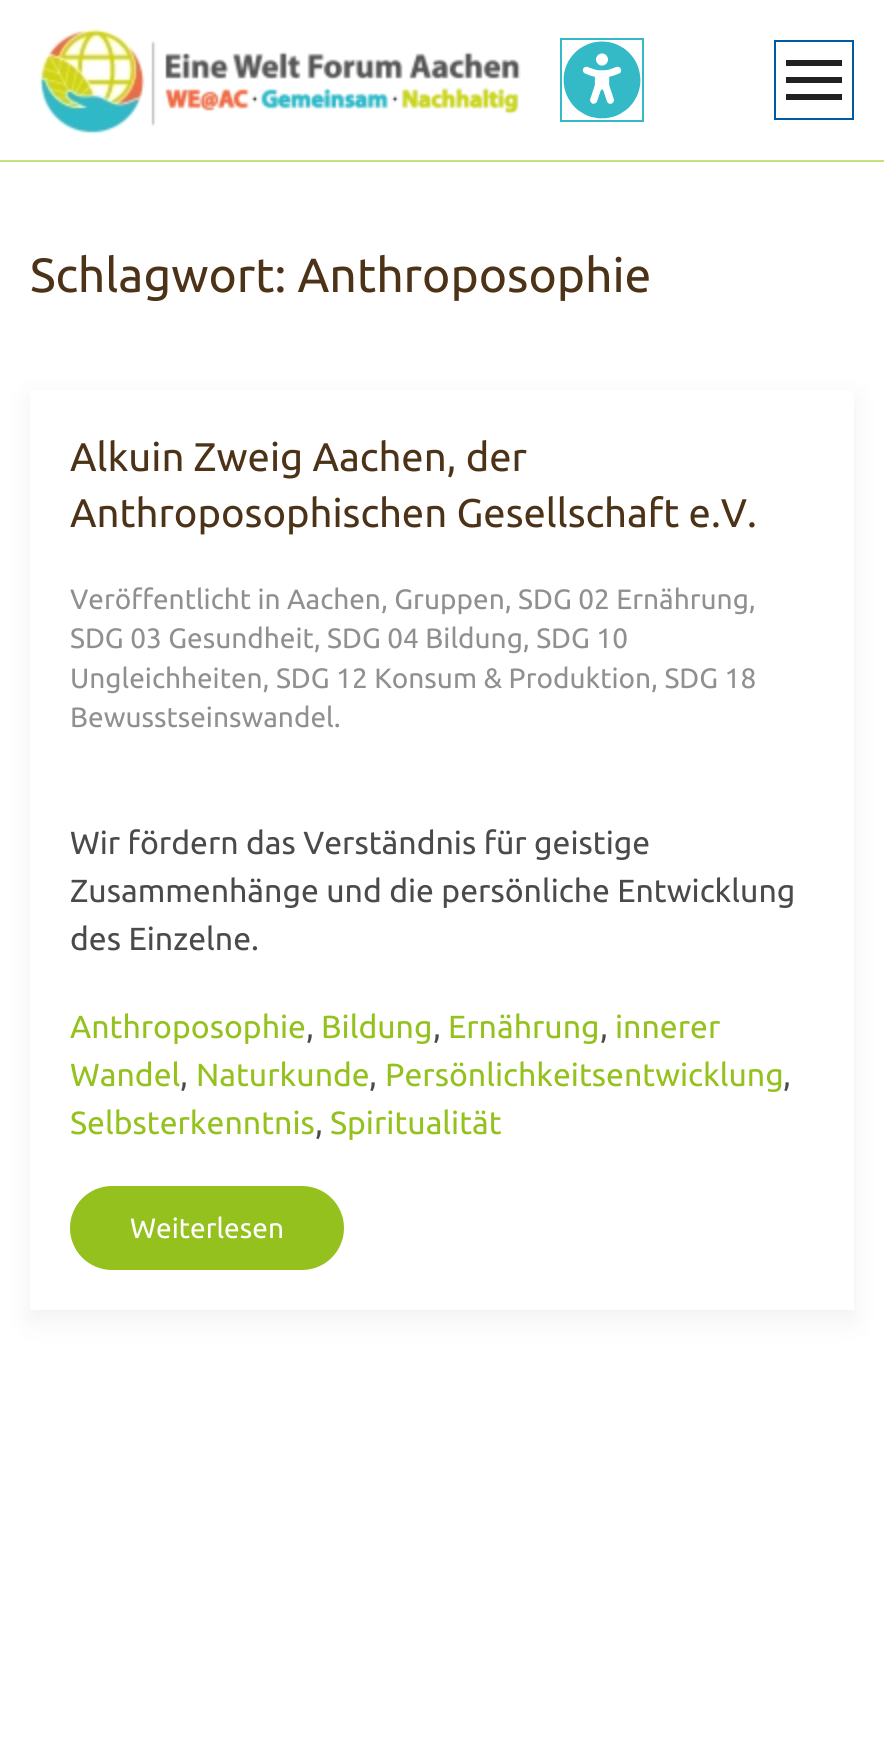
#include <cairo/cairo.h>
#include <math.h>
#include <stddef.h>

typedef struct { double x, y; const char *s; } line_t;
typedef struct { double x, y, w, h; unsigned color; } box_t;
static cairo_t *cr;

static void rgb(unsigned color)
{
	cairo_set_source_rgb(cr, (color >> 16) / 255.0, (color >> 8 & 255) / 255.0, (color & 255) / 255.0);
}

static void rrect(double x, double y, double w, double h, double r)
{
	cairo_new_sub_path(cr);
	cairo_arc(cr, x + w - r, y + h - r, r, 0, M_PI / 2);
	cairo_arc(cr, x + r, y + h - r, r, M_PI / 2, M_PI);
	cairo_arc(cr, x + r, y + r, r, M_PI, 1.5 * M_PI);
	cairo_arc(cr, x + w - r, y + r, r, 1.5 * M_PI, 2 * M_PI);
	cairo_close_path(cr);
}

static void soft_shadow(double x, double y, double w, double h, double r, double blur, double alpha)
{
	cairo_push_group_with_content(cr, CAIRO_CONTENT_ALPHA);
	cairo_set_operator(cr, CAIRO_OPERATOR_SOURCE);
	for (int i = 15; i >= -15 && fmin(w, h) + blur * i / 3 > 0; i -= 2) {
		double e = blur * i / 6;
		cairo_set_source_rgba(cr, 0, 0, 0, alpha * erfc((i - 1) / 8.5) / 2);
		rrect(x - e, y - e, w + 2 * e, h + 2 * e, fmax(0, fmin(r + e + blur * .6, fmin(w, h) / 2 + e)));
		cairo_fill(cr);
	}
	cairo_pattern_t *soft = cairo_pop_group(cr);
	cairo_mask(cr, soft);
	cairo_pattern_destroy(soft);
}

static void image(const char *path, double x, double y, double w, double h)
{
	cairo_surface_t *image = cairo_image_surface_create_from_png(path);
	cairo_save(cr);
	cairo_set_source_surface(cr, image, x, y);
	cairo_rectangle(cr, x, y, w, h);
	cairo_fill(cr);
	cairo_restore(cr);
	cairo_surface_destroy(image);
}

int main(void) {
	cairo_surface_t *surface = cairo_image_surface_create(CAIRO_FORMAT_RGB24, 884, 1744);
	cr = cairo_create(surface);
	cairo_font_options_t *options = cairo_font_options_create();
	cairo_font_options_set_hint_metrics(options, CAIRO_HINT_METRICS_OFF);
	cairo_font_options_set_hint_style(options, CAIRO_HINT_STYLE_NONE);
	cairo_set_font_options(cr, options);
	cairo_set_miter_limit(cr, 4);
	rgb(0xffffff);
	cairo_paint(cr);
	rgb(0xc4e17a);
	cairo_rectangle(cr, 0, 160, 884, 2);
	cairo_fill(cr);
	image("img/1.png", 39, 29, 482, 106);
	image("img/2.png", 563, 41, 78, 78);
	cairo_rectangle(cr, 561, 39, 82, 82);
	rgb(0x34b9c7);
	cairo_stroke(cr);
	cairo_rectangle(cr, 775, 41, 78, 78);
	rgb(0x005ba2);
	cairo_stroke(cr);
	{
		static const box_t items[] = {
			{786, 60, 56, 6, 0x212121},
			{786, 77, 56, 6, 0x212121},
			{786, 94, 56, 6, 0x212121},
		};
		for (size_t i = 0; i < sizeof items / sizeof *items; i++) {
			rgb(items[i].color);
			cairo_rectangle(cr, items[i].x, items[i].y, items[i].w, items[i].h);
			cairo_fill(cr);
		}
	}
	cairo_save(cr);
	cairo_set_fill_rule(cr, CAIRO_FILL_RULE_EVEN_ODD);
	cairo_new_path(cr);
	cairo_move_to(cr, 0, 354);
	cairo_line_to(cr, 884, 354);
	cairo_line_to(cr, 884, 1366);
	cairo_line_to(cr, 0, 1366);
	cairo_close_path(cr);
	cairo_move_to(cr, 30, 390);
	cairo_line_to(cr, 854, 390);
	cairo_line_to(cr, 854, 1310);
	cairo_line_to(cr, 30, 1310);
	cairo_close_path(cr);
	cairo_clip(cr);
	rgb(0x000000);
	soft_shadow(30, 400, 824, 920, 0, 15, 0.06);
	cairo_restore(cr);
	rgb(0x95c11f);
	rrect(70, 1186, 274, 84, 42);
	cairo_fill(cr);
	cairo_select_font_face(cr, "Ubuntu", CAIRO_FONT_SLANT_NORMAL, CAIRO_FONT_WEIGHT_NORMAL);
	cairo_set_font_size(cr, 48);
	rgb(0x4c3216);
	cairo_move_to(cr, 30, 292);
	cairo_show_text(cr, "Schlagwort: Anthroposophie");
	cairo_set_font_size(cr, 40);
	cairo_move_to(cr, 70, 471);
	cairo_show_text(cr, "Alkuin Zweig Aachen, der");
	cairo_move_to(cr, 70, 527);
	cairo_show_text(cr, "Anthroposophischen Gesellschaft e.V.");
	cairo_set_font_size(cr, 28);
	rgb(0x909090);
	{
		static const line_t items[] = {
			{70, 609, "Veröffentlicht in Aachen, Gruppen, SDG 02 Ernährung,"},
			{70, 648, "SDG 03 Gesundheit, SDG 04 Bildung, SDG 10"},
			{70, 688, "Ungleichheiten, SDG 12 Konsum & Produktion, SDG 18"},
			{70, 727, "Bewusstseinswandel."},
		};
		for (size_t i = 0; i < sizeof items / sizeof *items; i++) {
			cairo_move_to(cr, items[i].x, items[i].y);
			cairo_show_text(cr, items[i].s);
		}
	}
	cairo_set_font_size(cr, 32);
	rgb(0x4a4a4a);
	{
		static const line_t items[] = {
			{70, 854, "Wir fördern das Verständnis für geistige"},
			{70, 902, "Zusammenhänge und die persönliche Entwicklung"},
			{70, 950, "des Einzelne."},
		};
		for (size_t i = 0; i < sizeof items / sizeof *items; i++) {
			cairo_move_to(cr, items[i].x, items[i].y);
			cairo_show_text(cr, items[i].s);
		}
	}
	rgb(0x95c11f);
	cairo_move_to(cr, 70, 1038);
	cairo_show_text(cr, "Anthroposophie");
	rgb(0x4a4a4a);
	cairo_move_to(cr, 306, 1038);
	cairo_show_text(cr, ",");
	rgb(0x95c11f);
	cairo_move_to(cr, 321, 1038);
	cairo_show_text(cr, "Bildung");
	rgb(0x4a4a4a);
	cairo_move_to(cr, 433, 1038);
	cairo_show_text(cr, ",");
	rgb(0x95c11f);
	cairo_move_to(cr, 448, 1038);
	cairo_show_text(cr, "Ernährung");
	rgb(0x4a4a4a);
	cairo_move_to(cr, 600, 1038);
	cairo_show_text(cr, ",");
	rgb(0x95c11f);
	cairo_move_to(cr, 615, 1038);
	cairo_show_text(cr, "innerer");
	cairo_move_to(cr, 70, 1086);
	cairo_show_text(cr, "Wandel");
	rgb(0x4a4a4a);
	cairo_move_to(cr, 180, 1086);
	cairo_show_text(cr, ",");
	rgb(0x95c11f);
	cairo_move_to(cr, 196, 1086);
	cairo_show_text(cr, "Naturkunde");
	rgb(0x4a4a4a);
	cairo_move_to(cr, 369, 1086);
	cairo_show_text(cr, ",");
	rgb(0x95c11f);
	cairo_move_to(cr, 385, 1086);
	cairo_show_text(cr, "Persönlichkeitsentwicklung");
	rgb(0x4a4a4a);
	cairo_move_to(cr, 783, 1086);
	cairo_show_text(cr, ",");
	rgb(0x95c11f);
	cairo_move_to(cr, 70, 1134);
	cairo_show_text(cr, "Selbsterkenntnis");
	rgb(0x4a4a4a);
	cairo_move_to(cr, 315, 1134);
	cairo_show_text(cr, ",");
	rgb(0x95c11f);
	cairo_move_to(cr, 330, 1134);
	cairo_show_text(cr, "Spiritualität");
	cairo_set_font_size(cr, 28);
	rgb(0xffffff);
	cairo_move_to(cr, 130, 1238);
	cairo_show_text(cr, "Weiterlesen");
	cairo_surface_write_to_png(surface, "page.png");
	cairo_font_options_destroy(options);
	cairo_destroy(cr);
	cairo_surface_destroy(surface);
	return 0;
}
